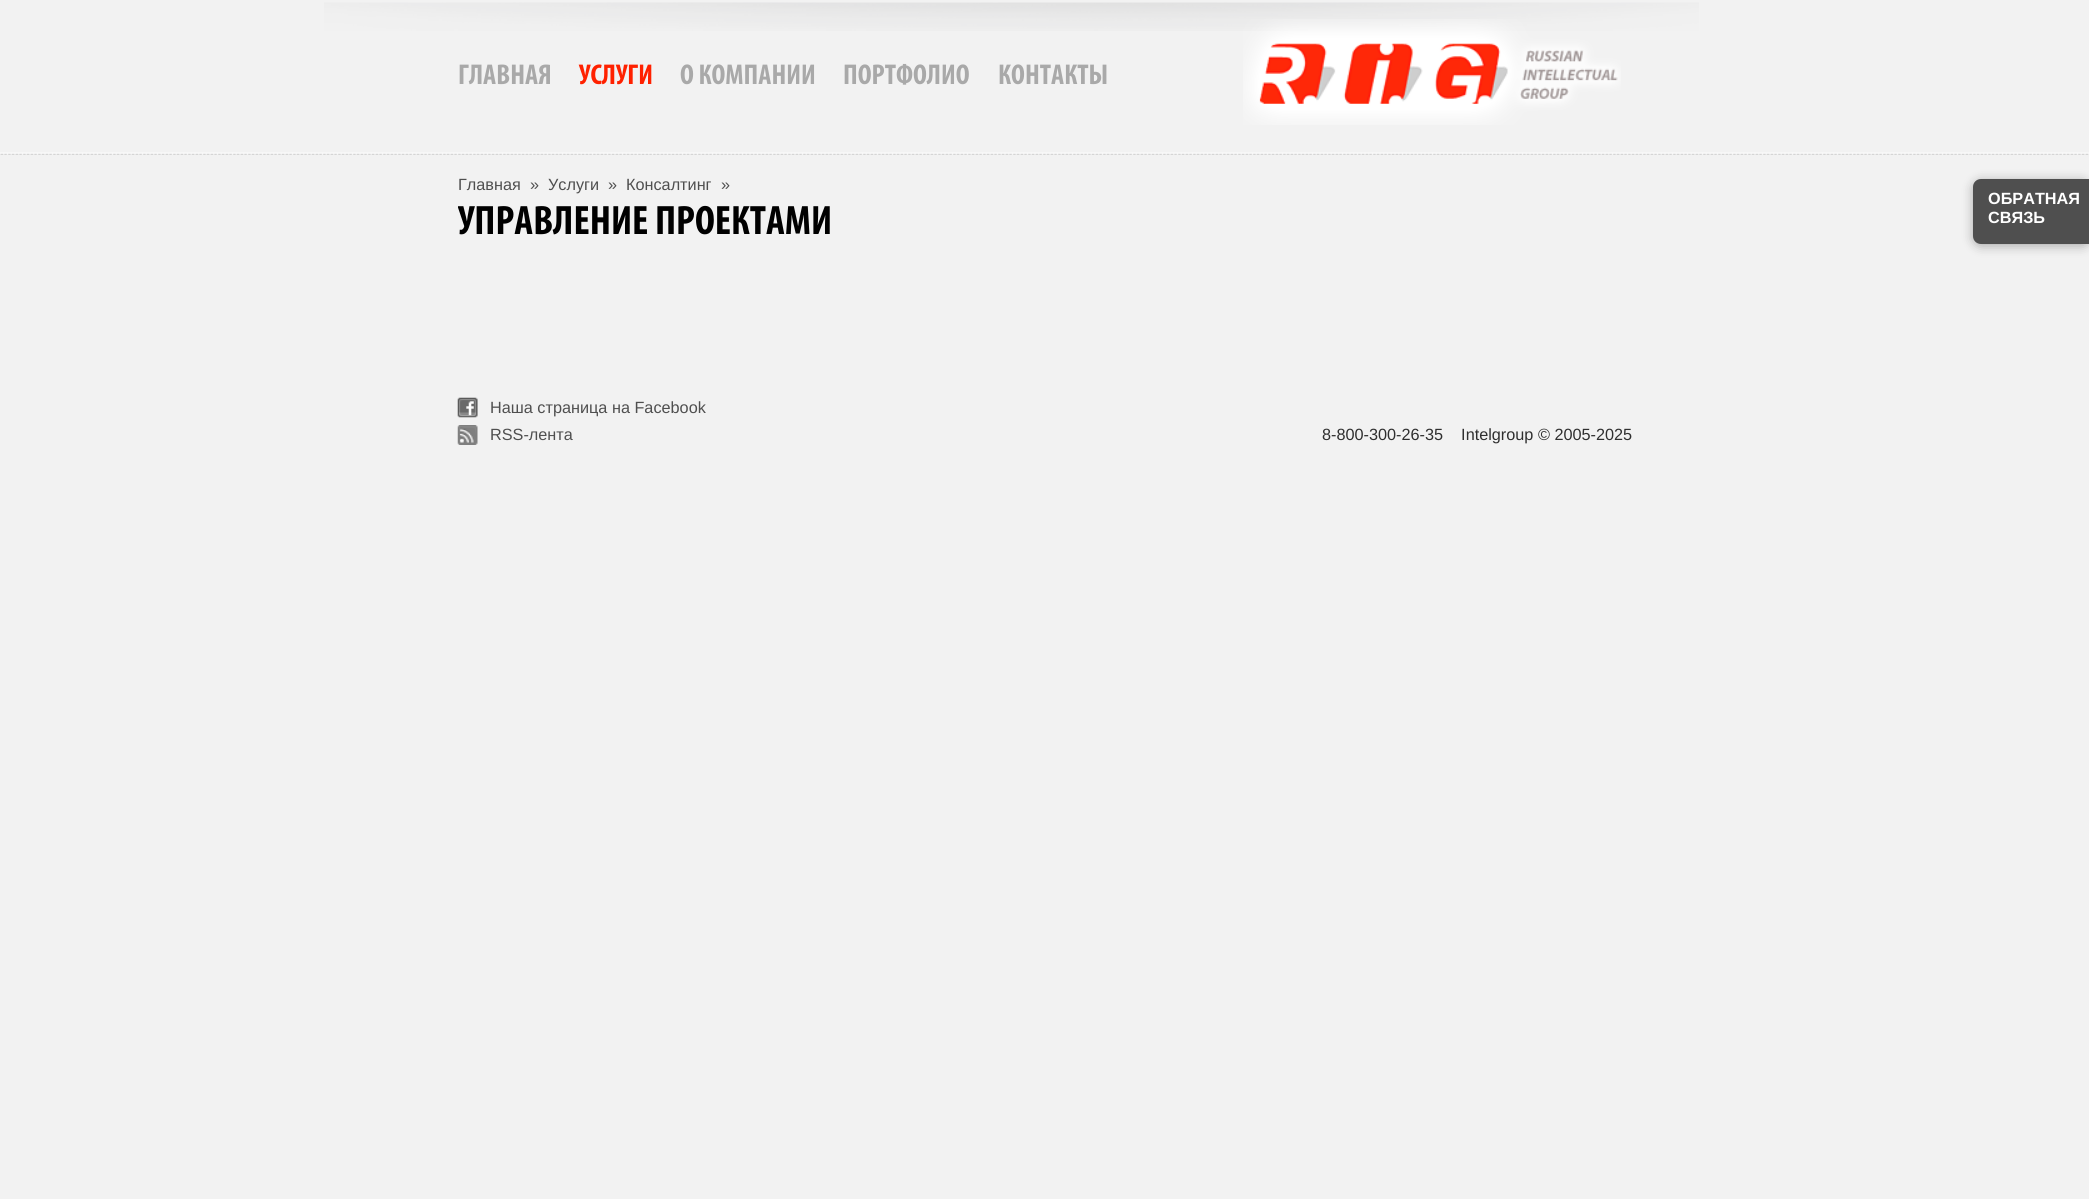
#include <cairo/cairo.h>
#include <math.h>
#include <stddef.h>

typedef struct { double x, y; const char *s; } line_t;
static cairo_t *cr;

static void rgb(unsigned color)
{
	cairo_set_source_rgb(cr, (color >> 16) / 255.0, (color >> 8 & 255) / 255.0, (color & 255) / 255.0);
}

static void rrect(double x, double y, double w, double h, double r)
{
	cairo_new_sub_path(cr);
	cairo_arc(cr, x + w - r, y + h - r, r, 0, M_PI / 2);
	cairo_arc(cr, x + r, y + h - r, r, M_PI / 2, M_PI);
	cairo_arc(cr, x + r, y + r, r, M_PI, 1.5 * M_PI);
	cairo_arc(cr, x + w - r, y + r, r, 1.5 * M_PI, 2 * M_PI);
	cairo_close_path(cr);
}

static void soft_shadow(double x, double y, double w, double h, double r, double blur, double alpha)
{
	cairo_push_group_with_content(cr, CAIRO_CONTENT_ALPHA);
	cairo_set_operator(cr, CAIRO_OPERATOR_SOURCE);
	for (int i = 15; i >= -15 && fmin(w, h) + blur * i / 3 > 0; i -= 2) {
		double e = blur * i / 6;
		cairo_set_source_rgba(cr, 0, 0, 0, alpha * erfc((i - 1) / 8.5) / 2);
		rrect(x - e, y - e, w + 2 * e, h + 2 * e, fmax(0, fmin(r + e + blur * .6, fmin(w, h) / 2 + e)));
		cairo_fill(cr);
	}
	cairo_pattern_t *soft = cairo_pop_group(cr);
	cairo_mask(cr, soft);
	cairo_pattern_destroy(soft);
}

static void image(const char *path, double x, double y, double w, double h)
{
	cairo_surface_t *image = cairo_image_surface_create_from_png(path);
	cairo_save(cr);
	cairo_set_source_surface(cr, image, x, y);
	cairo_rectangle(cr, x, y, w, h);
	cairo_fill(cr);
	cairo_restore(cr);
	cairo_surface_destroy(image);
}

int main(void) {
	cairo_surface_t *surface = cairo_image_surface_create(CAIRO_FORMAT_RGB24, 2089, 1199);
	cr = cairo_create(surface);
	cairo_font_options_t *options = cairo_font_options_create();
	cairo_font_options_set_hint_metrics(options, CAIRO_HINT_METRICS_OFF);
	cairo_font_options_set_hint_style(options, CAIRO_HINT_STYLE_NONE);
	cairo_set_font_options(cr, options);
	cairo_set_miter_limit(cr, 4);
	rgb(0xf2f2f2);
	cairo_paint(cr);
	image("img/1.png", 324, 2, 1375, 29);
	image("img/2.png", 0, 152, 2089, 3);
	image("img/3.png", 1243, 19, 378, 106);
	image("img/4.png", 457, 397, 21, 21);
	image("img/5.png", 457, 425, 21, 20);
	rgb(0x000000);
	soft_shadow(1973, 181, 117, 65, 8, 5.5, 0.3);
	rgb(0x4f4f4f);
	cairo_new_path(cr);
	cairo_move_to(cr, 1981, 179);
	cairo_line_to(cr, 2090, 179);
	cairo_line_to(cr, 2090, 244);
	cairo_line_to(cr, 1981, 244);
	cairo_curve_to(cr, 1976.5, 244, 1973, 240.5, 1973, 236);
	cairo_line_to(cr, 1973, 187);
	cairo_curve_to(cr, 1973, 182.5, 1976.5, 179, 1981, 179);
	cairo_close_path(cr);
	cairo_fill(cr);
	cairo_select_font_face(cr, "Myriad", CAIRO_FONT_SLANT_NORMAL, CAIRO_FONT_WEIGHT_BOLD);
	cairo_set_font_size(cr, 28.75);
	rgb(0xa9a9a9);
	cairo_move_to(cr, 458, 84);
	cairo_show_text(cr, "ГЛАВНАЯ");
	rgb(0xff2100);
	cairo_move_to(cr, 579, 84);
	cairo_show_text(cr, "УСЛУГИ");
	rgb(0xa9a9a9);
	{
		static const line_t items[] = {
			{680, 84, "О КОМПАНИИ"},
			{843, 84, "ПОРТФОЛИО"},
			{998, 84, "КОНТАКТЫ"},
		};
		for (size_t i = 0; i < sizeof items / sizeof *items; i++) {
			cairo_move_to(cr, items[i].x, items[i].y);
			cairo_show_text(cr, items[i].s);
		}
	}
	cairo_select_font_face(cr, "Liberation Sans", CAIRO_FONT_SLANT_NORMAL, CAIRO_FONT_WEIGHT_NORMAL);
	cairo_set_font_size(cr, 16.25);
	rgb(0x4f4f4f);
	{
		static const line_t items[] = {
			{458, 190, "Главная"},
			{530, 190, "»"},
			{548, 190, "Услуги"},
			{608, 190, "»"},
			{626, 190, "Консалтинг"},
			{721, 190, "»"},
		};
		for (size_t i = 0; i < sizeof items / sizeof *items; i++) {
			cairo_move_to(cr, items[i].x, items[i].y);
			cairo_show_text(cr, items[i].s);
		}
	}
	cairo_save(cr);
	cairo_rectangle(cr, 458, 171, 1175, 79);
	cairo_clip(cr);
	cairo_select_font_face(cr, "Myriad", CAIRO_FONT_SLANT_NORMAL, CAIRO_FONT_WEIGHT_BOLD);
	cairo_set_font_size(cr, 41.25);
	rgb(0x000000);
	cairo_move_to(cr, 458, 234);
	cairo_show_text(cr, "УПРАВЛЕНИЕ ПРОЕКТАМИ");
	cairo_restore(cr);
	cairo_move_to(cr, 490, 413);
	cairo_show_text(cr, "Наша страница на Facebook");
	cairo_move_to(cr, 490, 440);
	cairo_show_text(cr, "RSS-лента");
	rgb(0x2f2f2f);
	cairo_move_to(cr, 1322, 440);
	cairo_show_text(cr, "8-800-300-26-35    Intelgroup © 2005-2025");
	cairo_select_font_face(cr, "Liberation Sans", CAIRO_FONT_SLANT_NORMAL, CAIRO_FONT_WEIGHT_BOLD);
	rgb(0xffffff);
	cairo_move_to(cr, 1988, 204);
	cairo_show_text(cr, "ОБРАТНАЯ");
	cairo_move_to(cr, 1988, 223);
	cairo_show_text(cr, "СВЯЗЬ");
	cairo_surface_write_to_png(surface, "page.png");
	cairo_font_options_destroy(options);
	cairo_destroy(cr);
	cairo_surface_destroy(surface);
	return 0;
}
